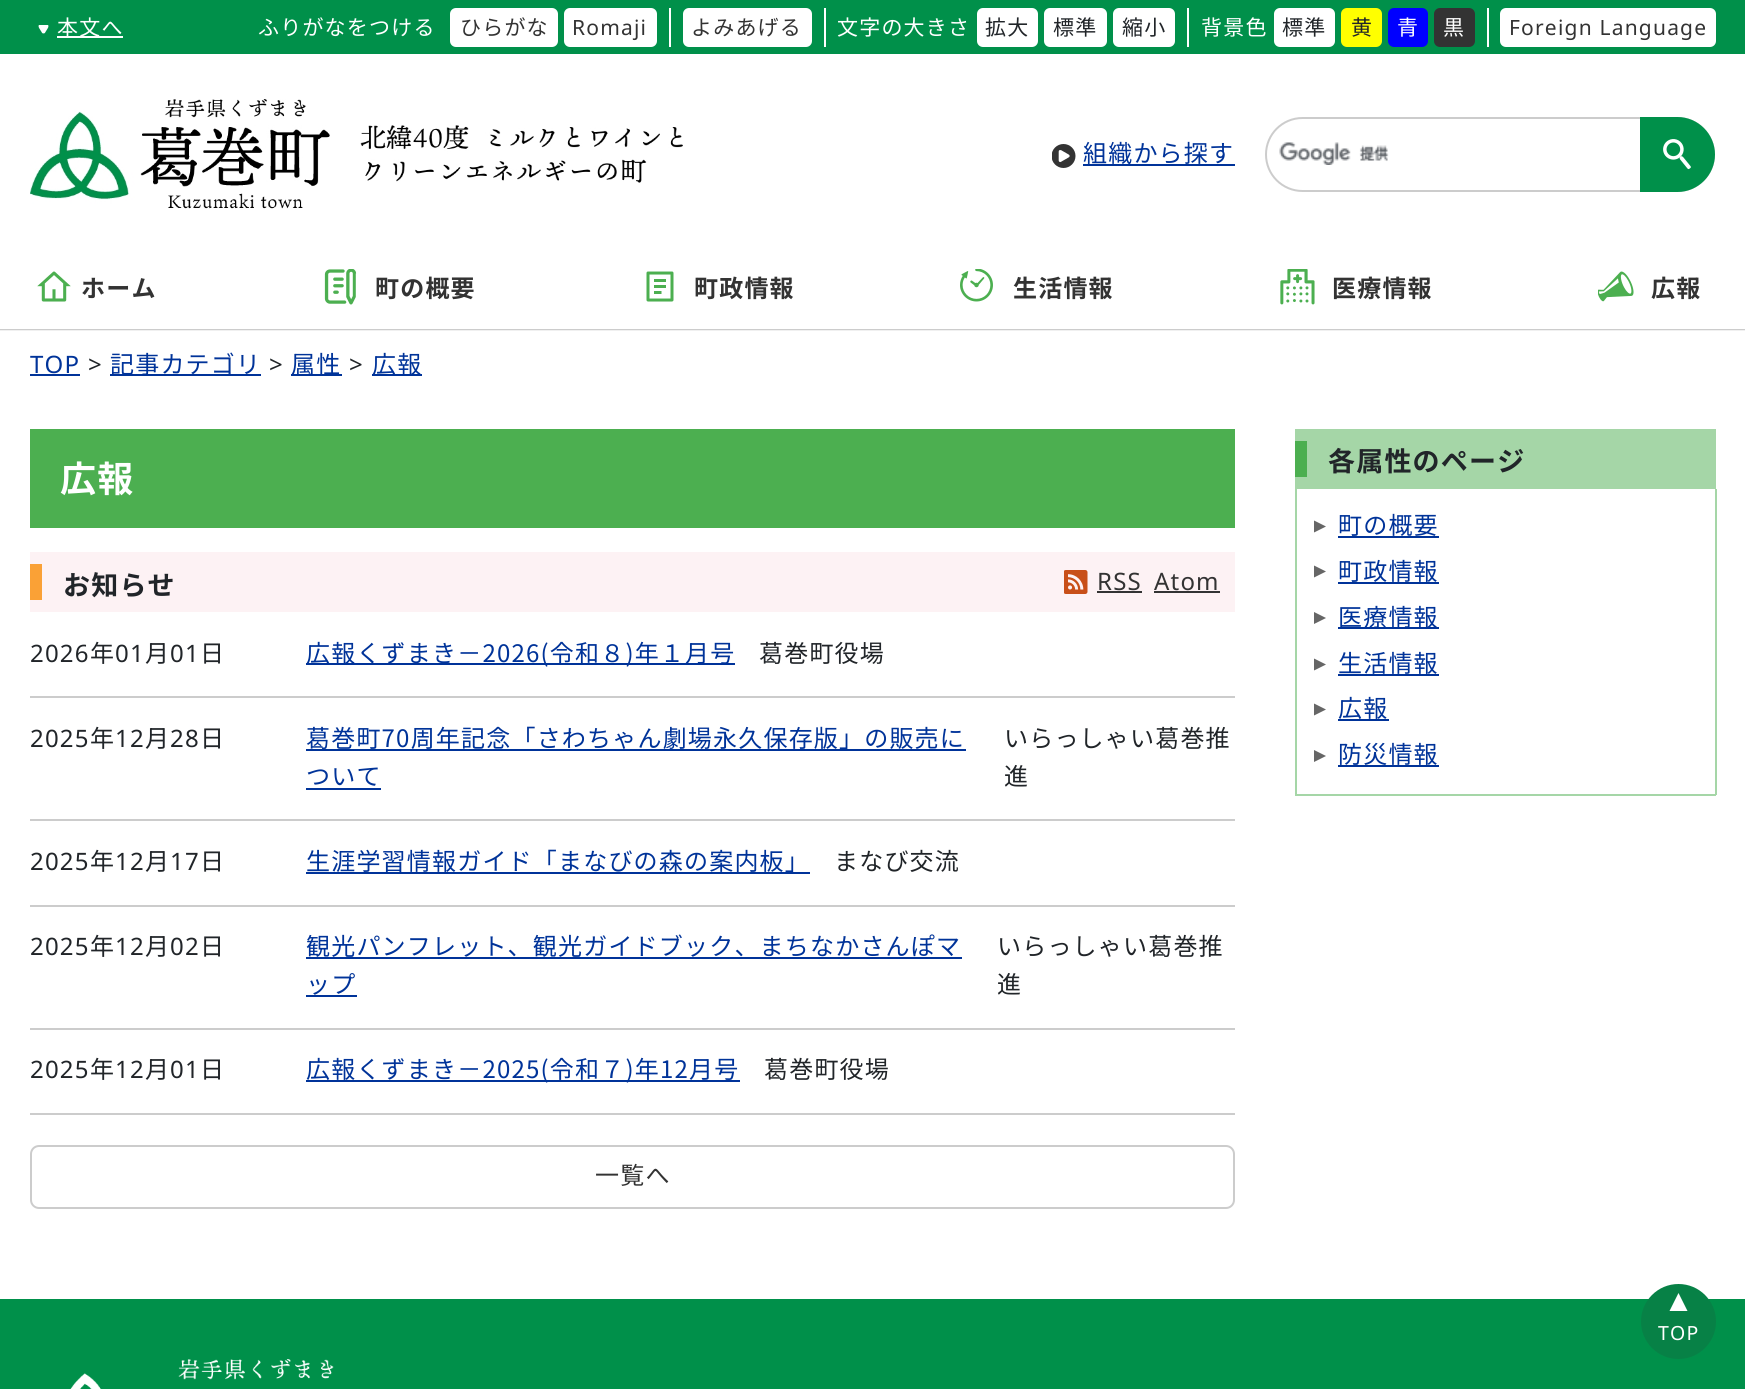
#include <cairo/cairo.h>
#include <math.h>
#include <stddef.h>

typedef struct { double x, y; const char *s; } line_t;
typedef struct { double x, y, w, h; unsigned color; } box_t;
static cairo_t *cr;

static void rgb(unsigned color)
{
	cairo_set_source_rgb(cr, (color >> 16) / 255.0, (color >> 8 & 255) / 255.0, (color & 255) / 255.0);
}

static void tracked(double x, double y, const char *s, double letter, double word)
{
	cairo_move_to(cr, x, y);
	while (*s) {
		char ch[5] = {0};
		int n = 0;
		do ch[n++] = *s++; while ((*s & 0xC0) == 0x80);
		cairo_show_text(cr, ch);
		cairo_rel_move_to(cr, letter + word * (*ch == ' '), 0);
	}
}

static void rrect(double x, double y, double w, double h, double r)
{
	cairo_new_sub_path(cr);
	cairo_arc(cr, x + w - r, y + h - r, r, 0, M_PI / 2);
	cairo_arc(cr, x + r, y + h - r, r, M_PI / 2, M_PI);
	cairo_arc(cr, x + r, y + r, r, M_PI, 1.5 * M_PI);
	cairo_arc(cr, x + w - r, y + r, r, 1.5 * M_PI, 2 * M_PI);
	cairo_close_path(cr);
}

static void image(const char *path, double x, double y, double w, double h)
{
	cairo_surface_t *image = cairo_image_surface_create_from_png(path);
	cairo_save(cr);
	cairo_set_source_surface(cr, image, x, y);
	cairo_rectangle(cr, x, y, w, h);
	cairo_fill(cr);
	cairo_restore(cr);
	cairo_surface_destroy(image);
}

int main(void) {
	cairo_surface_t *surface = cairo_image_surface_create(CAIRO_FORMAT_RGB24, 1745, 1389);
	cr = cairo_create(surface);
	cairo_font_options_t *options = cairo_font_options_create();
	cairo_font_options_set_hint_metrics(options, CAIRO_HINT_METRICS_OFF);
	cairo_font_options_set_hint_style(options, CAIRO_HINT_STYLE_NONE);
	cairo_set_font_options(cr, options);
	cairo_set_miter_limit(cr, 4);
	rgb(0xffffff);
	cairo_paint(cr);
	rgb(0x00904a);
	cairo_rectangle(cr, 0, 0, 1745, 54);
	cairo_fill(cr);
	image("img/1.png", 38, 25, 11, 9);
	rgb(0xffffff);
	cairo_rectangle(cr, 57, 36, 66, 2);
	cairo_fill(cr);
	rrect(450, 8, 108, 39, 6);
	cairo_fill(cr);
	rrect(564, 8, 93, 39, 6);
	cairo_fill(cr);
	cairo_rectangle(cr, 669, 8, 2, 39);
	cairo_fill(cr);
	rrect(683, 8, 129, 39, 6);
	cairo_fill(cr);
	cairo_rectangle(cr, 824, 8, 2, 39);
	cairo_fill(cr);
	rrect(977, 8, 61, 39, 6);
	cairo_fill(cr);
	rrect(1044, 8, 63, 39, 6);
	cairo_fill(cr);
	rrect(1113, 8, 62, 39, 6);
	cairo_fill(cr);
	cairo_rectangle(cr, 1187, 8, 2, 39);
	cairo_fill(cr);
	rrect(1274, 8, 61, 39, 6);
	cairo_fill(cr);
	rgb(0xffff00);
	rrect(1341, 8, 41, 39, 6);
	cairo_fill(cr);
	rgb(0x0000ff);
	rrect(1388, 8, 40, 39, 6);
	cairo_fill(cr);
	rgb(0x333333);
	rrect(1434, 8, 41, 39, 6);
	cairo_fill(cr);
	rgb(0xffffff);
	cairo_rectangle(cr, 1487, 8, 2, 39);
	cairo_fill(cr);
	rrect(1500, 8, 216, 39, 6);
	cairo_fill(cr);
	image("img/2.png", 30, 99, 300, 110);
	image("img/3.png", 360, 125, 323, 58);
	image("img/4.png", 1052, 144, 24, 24);
	rgb(0x003399);
	cairo_rectangle(cr, 1083, 164, 152, 2);
	cairo_fill(cr);
	image("img/5.png", 1279, 142, 110, 23);
	rrect(1266, 118, 448, 73, 36.5);
	rgb(0xcccccc);
	cairo_stroke(cr);
	rgb(0x00904a);
	cairo_new_path(cr);
	cairo_move_to(cr, 1640, 117);
	cairo_line_to(cr, 1677.5, 117);
	cairo_curve_to(cr, 1698, 117, 1715, 134, 1715, 154.5);
	cairo_curve_to(cr, 1715, 175, 1698, 192, 1677.5, 192);
	cairo_line_to(cr, 1640, 192);
	cairo_close_path(cr);
	cairo_fill(cr);
	image("img/6.png", 1663, 139, 28, 31);
	rgb(0xcccccc);
	cairo_rectangle(cr, 0, 329, 1745, 1);
	cairo_fill(cr);
	rgb(0xf0f0f0);
	cairo_rectangle(cr, 0, 330, 1745, 1);
	cairo_fill(cr);
	image("img/7.png", 37, 271, 34, 31);
	image("img/8.png", 324, 269, 33, 36);
	image("img/9.png", 646, 271, 28, 31);
	image("img/10.png", 960, 269, 33, 33);
	image("img/11.png", 1280, 269, 35, 36);
	image("img/12.png", 1598, 271, 36, 31);
	{
		static const box_t items[] = {
			{30, 374, 50, 2, 0x003399},
			{110, 374, 151, 2, 0x003399},
			{291, 374, 51, 2, 0x003399},
			{372, 374, 50, 2, 0x003399},
			{30, 429, 1205, 99, 0x4caf50},
			{30, 552, 1205, 60, 0xfdf2f4},
			{30, 564, 12, 36, 0xfaa136},
		};
		for (size_t i = 0; i < sizeof items / sizeof *items; i++) {
			rgb(items[i].color);
			cairo_rectangle(cr, items[i].x, items[i].y, items[i].w, items[i].h);
			cairo_fill(cr);
		}
	}
	image("img/13.png", 1064, 570, 24, 24);
	{
		static const box_t items[] = {
			{1097, 591, 45, 2, 0x333333},
			{1154, 591, 66, 2, 0x333333},
			{30, 696, 1205, 2, 0xcccccc},
			{306, 663, 429, 2, 0x003399},
			{30, 819, 1205, 2, 0xcccccc},
			{306, 749, 660, 2, 0x003399},
			{306, 788, 75, 2, 0x003399},
			{30, 905, 1205, 2, 0xcccccc},
			{306, 872, 504, 2, 0x003399},
			{30, 1028, 1205, 2, 0xcccccc},
			{306, 957, 656, 2, 0x003399},
			{306, 995, 51, 2, 0x003399},
			{30, 1113, 1205, 2, 0xcccccc},
			{306, 1080, 434, 2, 0x003399},
		};
		for (size_t i = 0; i < sizeof items / sizeof *items; i++) {
			rgb(items[i].color);
			cairo_rectangle(cr, items[i].x, items[i].y, items[i].w, items[i].h);
			cairo_fill(cr);
		}
	}
	rrect(31, 1146, 1203, 62, 8);
	rgb(0xcccccc);
	cairo_stroke(cr);
	{
		static const box_t items[] = {
			{1295, 429, 421, 60, 0xa5d6a7},
			{1295, 441, 12, 36, 0x4caf50},
			{1715, 489, 2, 306, 0xa5d6a7},
			{1295, 794, 421, 2, 0xa5d6a7},
			{1295, 489, 2, 306, 0xa5d6a7},
		};
		for (size_t i = 0; i < sizeof items / sizeof *items; i++) {
			rgb(items[i].color);
			cairo_rectangle(cr, items[i].x, items[i].y, items[i].w, items[i].h);
			cairo_fill(cr);
		}
	}
	rgb(0x666666);
	cairo_new_path(cr);
	cairo_move_to(cr, 1314, 520.5);
	cairo_line_to(cr, 1314, 532.5);
	cairo_line_to(cr, 1326, 526.5);
	cairo_close_path(cr);
	cairo_move_to(cr, 1314, 565.5);
	cairo_line_to(cr, 1314, 577.5);
	cairo_line_to(cr, 1326, 571.5);
	cairo_close_path(cr);
	cairo_fill(cr);
	rgb(0x003399);
	cairo_rectangle(cr, 1338, 536, 101, 2);
	cairo_fill(cr);
	cairo_rectangle(cr, 1338, 582, 101, 2);
	cairo_fill(cr);
	rgb(0x666666);
	cairo_new_path(cr);
	cairo_move_to(cr, 1314, 612);
	cairo_line_to(cr, 1314, 624);
	cairo_line_to(cr, 1326, 618);
	cairo_close_path(cr);
	cairo_move_to(cr, 1314, 658.5);
	cairo_line_to(cr, 1314, 670.5);
	cairo_line_to(cr, 1326, 664.5);
	cairo_close_path(cr);
	cairo_fill(cr);
	rgb(0x003399);
	cairo_rectangle(cr, 1338, 627, 101, 2);
	cairo_fill(cr);
	cairo_rectangle(cr, 1338, 674, 101, 2);
	cairo_fill(cr);
	rgb(0x666666);
	cairo_new_path(cr);
	cairo_move_to(cr, 1314, 703.5);
	cairo_line_to(cr, 1314, 715.5);
	cairo_line_to(cr, 1326, 709.5);
	cairo_close_path(cr);
	cairo_move_to(cr, 1314, 750);
	cairo_line_to(cr, 1314, 762);
	cairo_line_to(cr, 1326, 756);
	cairo_close_path(cr);
	cairo_fill(cr);
	{
		static const box_t items[] = {
			{1338, 719, 51, 2, 0x003399},
			{1338, 765, 101, 2, 0x003399},
			{0, 1299, 1745, 90, 0x00904a},
		};
		for (size_t i = 0; i < sizeof items / sizeof *items; i++) {
			rgb(items[i].color);
			cairo_rectangle(cr, items[i].x, items[i].y, items[i].w, items[i].h);
			cairo_fill(cr);
		}
	}
	image("img/14.png", 70, 1359, 264, 30);
	rgb(0x078146);
	cairo_arc(cr, 1678.5, 1321.5, 37.5, 0, 2 * M_PI);
	cairo_fill(cr);
	rgb(0xffffff);
	cairo_new_path(cr);
	cairo_move_to(cr, 1687.5, 1311);
	cairo_line_to(cr, 1669.5, 1311);
	cairo_line_to(cr, 1678.5, 1293);
	cairo_close_path(cr);
	cairo_fill(cr);
	cairo_select_font_face(cr, "Noto Sans JP", CAIRO_FONT_SLANT_NORMAL, CAIRO_FONT_WEIGHT_NORMAL);
	cairo_set_font_size(cr, 21);
	tracked(57, 35, "本文へ", 1.2, 0);
	tracked(258, 35, "ふりがなをつける", 1.2, 0);
	rgb(0x333333);
	tracked(460, 35, "ひらがな", 1.2, 0);
	cairo_select_font_face(cr, "Noto Sans", CAIRO_FONT_SLANT_NORMAL, CAIRO_FONT_WEIGHT_NORMAL);
	tracked(572, 35, "Romaji", 1.2, 0);
	cairo_select_font_face(cr, "Noto Sans JP", CAIRO_FONT_SLANT_NORMAL, CAIRO_FONT_WEIGHT_NORMAL);
	tracked(691, 35, "よみあげる", 1.2, 0);
	rgb(0xffffff);
	tracked(837, 35, "文字の大きさ", 1.2, 0);
	rgb(0x212529);
	{
		static const line_t items[] = {
			{985, 35, "拡大"},
			{1053, 35, "標準"},
			{1122, 35, "縮小"},
		};
		for (size_t i = 0; i < sizeof items / sizeof *items; i++) {
			tracked(items[i].x, items[i].y, items[i].s, 1.2, 0);
		}
	}
	rgb(0xffffff);
	tracked(1201, 35, "背景色", 1.2, 0);
	rgb(0x212529);
	tracked(1282, 35, "標準", 1.2, 0);
	tracked(1351, 35, "黄", 1.2, 0);
	rgb(0xffffff);
	tracked(1397, 35, "青", 1.2, 0);
	tracked(1443, 35, "黒", 1.2, 0);
	cairo_select_font_face(cr, "Noto Sans", CAIRO_FONT_SLANT_NORMAL, CAIRO_FONT_WEIGHT_NORMAL);
	rgb(0x333333);
	tracked(1509, 35, "Foreign Language", 1.2, 0);
	cairo_select_font_face(cr, "Noto Sans JP", CAIRO_FONT_SLANT_NORMAL, CAIRO_FONT_WEIGHT_NORMAL);
	cairo_set_font_size(cr, 24);
	rgb(0x003399);
	tracked(1083, 162, "組織から探す", 1.2, 0);
	cairo_select_font_face(cr, "Noto Sans JP", CAIRO_FONT_SLANT_NORMAL, CAIRO_FONT_WEIGHT_BOLD);
	rgb(0x333333);
	{
		static const line_t items[] = {
			{81, 297, "ホーム"},
			{375, 297, "町の概要"},
			{694, 297, "町政情報"},
			{1013, 297, "生活情報"},
			{1332, 297, "医療情報"},
			{1651, 297, "広報"},
		};
		for (size_t i = 0; i < sizeof items / sizeof *items; i++) {
			tracked(items[i].x, items[i].y, items[i].s, 1.2, 0);
		}
	}
	cairo_select_font_face(cr, "Noto Sans", CAIRO_FONT_SLANT_NORMAL, CAIRO_FONT_WEIGHT_NORMAL);
	rgb(0x003399);
	tracked(30, 373, "TOP", 1.2, 0);
	rgb(0x212529);
	tracked(88, 373, ">", 1.2, 0);
	cairo_select_font_face(cr, "Noto Sans JP", CAIRO_FONT_SLANT_NORMAL, CAIRO_FONT_WEIGHT_NORMAL);
	rgb(0x003399);
	tracked(110, 373, "記事カテゴリ", 1.2, 0);
	cairo_select_font_face(cr, "Noto Sans", CAIRO_FONT_SLANT_NORMAL, CAIRO_FONT_WEIGHT_NORMAL);
	rgb(0x212529);
	tracked(269, 373, ">", 1.2, 0);
	cairo_select_font_face(cr, "Noto Sans JP", CAIRO_FONT_SLANT_NORMAL, CAIRO_FONT_WEIGHT_NORMAL);
	rgb(0x003399);
	tracked(291, 373, "属性", 1.2, 0);
	cairo_select_font_face(cr, "Noto Sans", CAIRO_FONT_SLANT_NORMAL, CAIRO_FONT_WEIGHT_NORMAL);
	rgb(0x212529);
	tracked(349, 373, ">", 1.2, 0);
	cairo_select_font_face(cr, "Noto Sans JP", CAIRO_FONT_SLANT_NORMAL, CAIRO_FONT_WEIGHT_NORMAL);
	rgb(0x003399);
	tracked(372, 373, "広報", 1.2, 0);
	cairo_select_font_face(cr, "Noto Sans JP", CAIRO_FONT_SLANT_NORMAL, CAIRO_FONT_WEIGHT_BOLD);
	cairo_set_font_size(cr, 36);
	rgb(0xffffff);
	tracked(60, 492, "広報", 1.2, 0);
	cairo_set_font_size(cr, 27);
	rgb(0x212529);
	tracked(63, 595, "お知らせ", 1.2, 0);
	cairo_select_font_face(cr, "Noto Sans", CAIRO_FONT_SLANT_NORMAL, CAIRO_FONT_WEIGHT_NORMAL);
	cairo_set_font_size(cr, 24);
	rgb(0x333333);
	tracked(1097, 590, "RSS", 1.2, 0);
	tracked(1154, 590, "Atom", 1.2, 0);
	rgb(0x212529);
	tracked(30, 662, "2026", 1.2, 0);
	cairo_select_font_face(cr, "Noto Sans JP", CAIRO_FONT_SLANT_NORMAL, CAIRO_FONT_WEIGHT_NORMAL);
	tracked(90, 662, "年", 1.2, 0);
	cairo_select_font_face(cr, "Noto Sans", CAIRO_FONT_SLANT_NORMAL, CAIRO_FONT_WEIGHT_NORMAL);
	tracked(115, 662, "01", 1.2, 0);
	cairo_select_font_face(cr, "Noto Sans JP", CAIRO_FONT_SLANT_NORMAL, CAIRO_FONT_WEIGHT_NORMAL);
	tracked(145, 662, "月", 1.2, 0);
	cairo_select_font_face(cr, "Noto Sans", CAIRO_FONT_SLANT_NORMAL, CAIRO_FONT_WEIGHT_NORMAL);
	tracked(170, 662, "01", 1.2, 0);
	cairo_select_font_face(cr, "Noto Sans JP", CAIRO_FONT_SLANT_NORMAL, CAIRO_FONT_WEIGHT_NORMAL);
	tracked(200, 662, "日", 1.2, 0);
	rgb(0x003399);
	tracked(306, 662, "広報くずまき－2026(令和８)年１月号", 1.2, 0);
	rgb(0x212529);
	tracked(759, 662, "葛巻町役場", 1.2, 0);
	cairo_select_font_face(cr, "Noto Sans", CAIRO_FONT_SLANT_NORMAL, CAIRO_FONT_WEIGHT_NORMAL);
	tracked(30, 747, "2025", 1.2, 0);
	cairo_select_font_face(cr, "Noto Sans JP", CAIRO_FONT_SLANT_NORMAL, CAIRO_FONT_WEIGHT_NORMAL);
	tracked(90, 747, "年", 1.2, 0);
	cairo_select_font_face(cr, "Noto Sans", CAIRO_FONT_SLANT_NORMAL, CAIRO_FONT_WEIGHT_NORMAL);
	tracked(115, 747, "12", 1.2, 0);
	cairo_select_font_face(cr, "Noto Sans JP", CAIRO_FONT_SLANT_NORMAL, CAIRO_FONT_WEIGHT_NORMAL);
	tracked(145, 747, "月", 1.2, 0);
	cairo_select_font_face(cr, "Noto Sans", CAIRO_FONT_SLANT_NORMAL, CAIRO_FONT_WEIGHT_NORMAL);
	tracked(170, 747, "28", 1.2, 0);
	cairo_select_font_face(cr, "Noto Sans JP", CAIRO_FONT_SLANT_NORMAL, CAIRO_FONT_WEIGHT_NORMAL);
	tracked(200, 747, "日", 1.2, 0);
	rgb(0x003399);
	tracked(306, 747, "葛巻町70周年記念「さわちゃん劇場永久保存版」の販売に", 1.2, 0);
	tracked(306, 785, "ついて", 1.2, 0);
	rgb(0x212529);
	tracked(1004, 747, "いらっしゃい葛巻推", 1.2, 0);
	tracked(1004, 785, "進", 1.2, 0);
	cairo_select_font_face(cr, "Noto Sans", CAIRO_FONT_SLANT_NORMAL, CAIRO_FONT_WEIGHT_NORMAL);
	tracked(30, 870, "2025", 1.2, 0);
	cairo_select_font_face(cr, "Noto Sans JP", CAIRO_FONT_SLANT_NORMAL, CAIRO_FONT_WEIGHT_NORMAL);
	tracked(90, 870, "年", 1.2, 0);
	cairo_select_font_face(cr, "Noto Sans", CAIRO_FONT_SLANT_NORMAL, CAIRO_FONT_WEIGHT_NORMAL);
	tracked(115, 870, "12", 1.2, 0);
	cairo_select_font_face(cr, "Noto Sans JP", CAIRO_FONT_SLANT_NORMAL, CAIRO_FONT_WEIGHT_NORMAL);
	tracked(145, 870, "月", 1.2, 0);
	cairo_select_font_face(cr, "Noto Sans", CAIRO_FONT_SLANT_NORMAL, CAIRO_FONT_WEIGHT_NORMAL);
	tracked(170, 870, "17", 1.2, 0);
	cairo_select_font_face(cr, "Noto Sans JP", CAIRO_FONT_SLANT_NORMAL, CAIRO_FONT_WEIGHT_NORMAL);
	tracked(200, 870, "日", 1.2, 0);
	rgb(0x003399);
	tracked(306, 870, "生涯学習情報ガイド「まなびの森の案内板」", 1.2, 0);
	rgb(0x212529);
	tracked(834, 870, "まなび交流", 1.2, 0);
	cairo_select_font_face(cr, "Noto Sans", CAIRO_FONT_SLANT_NORMAL, CAIRO_FONT_WEIGHT_NORMAL);
	tracked(30, 955, "2025", 1.2, 0);
	cairo_select_font_face(cr, "Noto Sans JP", CAIRO_FONT_SLANT_NORMAL, CAIRO_FONT_WEIGHT_NORMAL);
	tracked(90, 955, "年", 1.2, 0);
	cairo_select_font_face(cr, "Noto Sans", CAIRO_FONT_SLANT_NORMAL, CAIRO_FONT_WEIGHT_NORMAL);
	tracked(115, 955, "12", 1.2, 0);
	cairo_select_font_face(cr, "Noto Sans JP", CAIRO_FONT_SLANT_NORMAL, CAIRO_FONT_WEIGHT_NORMAL);
	tracked(145, 955, "月", 1.2, 0);
	cairo_select_font_face(cr, "Noto Sans", CAIRO_FONT_SLANT_NORMAL, CAIRO_FONT_WEIGHT_NORMAL);
	tracked(170, 955, "02", 1.2, 0);
	cairo_select_font_face(cr, "Noto Sans JP", CAIRO_FONT_SLANT_NORMAL, CAIRO_FONT_WEIGHT_NORMAL);
	tracked(200, 955, "日", 1.2, 0);
	rgb(0x003399);
	tracked(306, 955, "観光パンフレット、観光ガイドブック、まちなかさんぽマ", 1.2, 0);
	tracked(306, 993, "ップ", 1.2, 0);
	rgb(0x212529);
	tracked(997, 955, "いらっしゃい葛巻推", 1.2, 0);
	tracked(997, 993, "進", 1.2, 0);
	cairo_select_font_face(cr, "Noto Sans", CAIRO_FONT_SLANT_NORMAL, CAIRO_FONT_WEIGHT_NORMAL);
	tracked(30, 1078, "2025", 1.2, 0);
	cairo_select_font_face(cr, "Noto Sans JP", CAIRO_FONT_SLANT_NORMAL, CAIRO_FONT_WEIGHT_NORMAL);
	tracked(90, 1078, "年", 1.2, 0);
	cairo_select_font_face(cr, "Noto Sans", CAIRO_FONT_SLANT_NORMAL, CAIRO_FONT_WEIGHT_NORMAL);
	tracked(115, 1078, "12", 1.2, 0);
	cairo_select_font_face(cr, "Noto Sans JP", CAIRO_FONT_SLANT_NORMAL, CAIRO_FONT_WEIGHT_NORMAL);
	tracked(145, 1078, "月", 1.2, 0);
	cairo_select_font_face(cr, "Noto Sans", CAIRO_FONT_SLANT_NORMAL, CAIRO_FONT_WEIGHT_NORMAL);
	tracked(170, 1078, "01", 1.2, 0);
	cairo_select_font_face(cr, "Noto Sans JP", CAIRO_FONT_SLANT_NORMAL, CAIRO_FONT_WEIGHT_NORMAL);
	tracked(200, 1078, "日", 1.2, 0);
	rgb(0x003399);
	tracked(306, 1078, "広報くずまき－2025(令和７)年12月号", 1.2, 0);
	rgb(0x212529);
	tracked(764, 1078, "葛巻町役場", 1.2, 0);
	rgb(0x333333);
	tracked(595, 1184, "一覧へ", 1.2, 0);
	cairo_select_font_face(cr, "Noto Sans JP", CAIRO_FONT_SLANT_NORMAL, CAIRO_FONT_WEIGHT_BOLD);
	cairo_set_font_size(cr, 27);
	rgb(0x212529);
	tracked(1328, 471, "各属性のページ", 1.2, 0);
	cairo_select_font_face(cr, "Noto Sans JP", CAIRO_FONT_SLANT_NORMAL, CAIRO_FONT_WEIGHT_NORMAL);
	cairo_set_font_size(cr, 24);
	rgb(0x003399);
	{
		static const line_t items[] = {
			{1338, 534, "町の概要"},
			{1338, 580, "町政情報"},
			{1338, 626, "医療情報"},
			{1338, 672, "生活情報"},
			{1338, 717, "広報"},
			{1338, 763, "防災情報"},
		};
		for (size_t i = 0; i < sizeof items / sizeof *items; i++) {
			tracked(items[i].x, items[i].y, items[i].s, 1.2, 0);
		}
	}
	cairo_select_font_face(cr, "Noto Sans", CAIRO_FONT_SLANT_NORMAL, CAIRO_FONT_WEIGHT_NORMAL);
	cairo_set_font_size(cr, 19.5);
	rgb(0xffffff);
	tracked(1658, 1340, "TOP", 1.2, 0);
	cairo_surface_write_to_png(surface, "page.png");
	cairo_font_options_destroy(options);
	cairo_destroy(cr);
	cairo_surface_destroy(surface);
	return 0;
}
